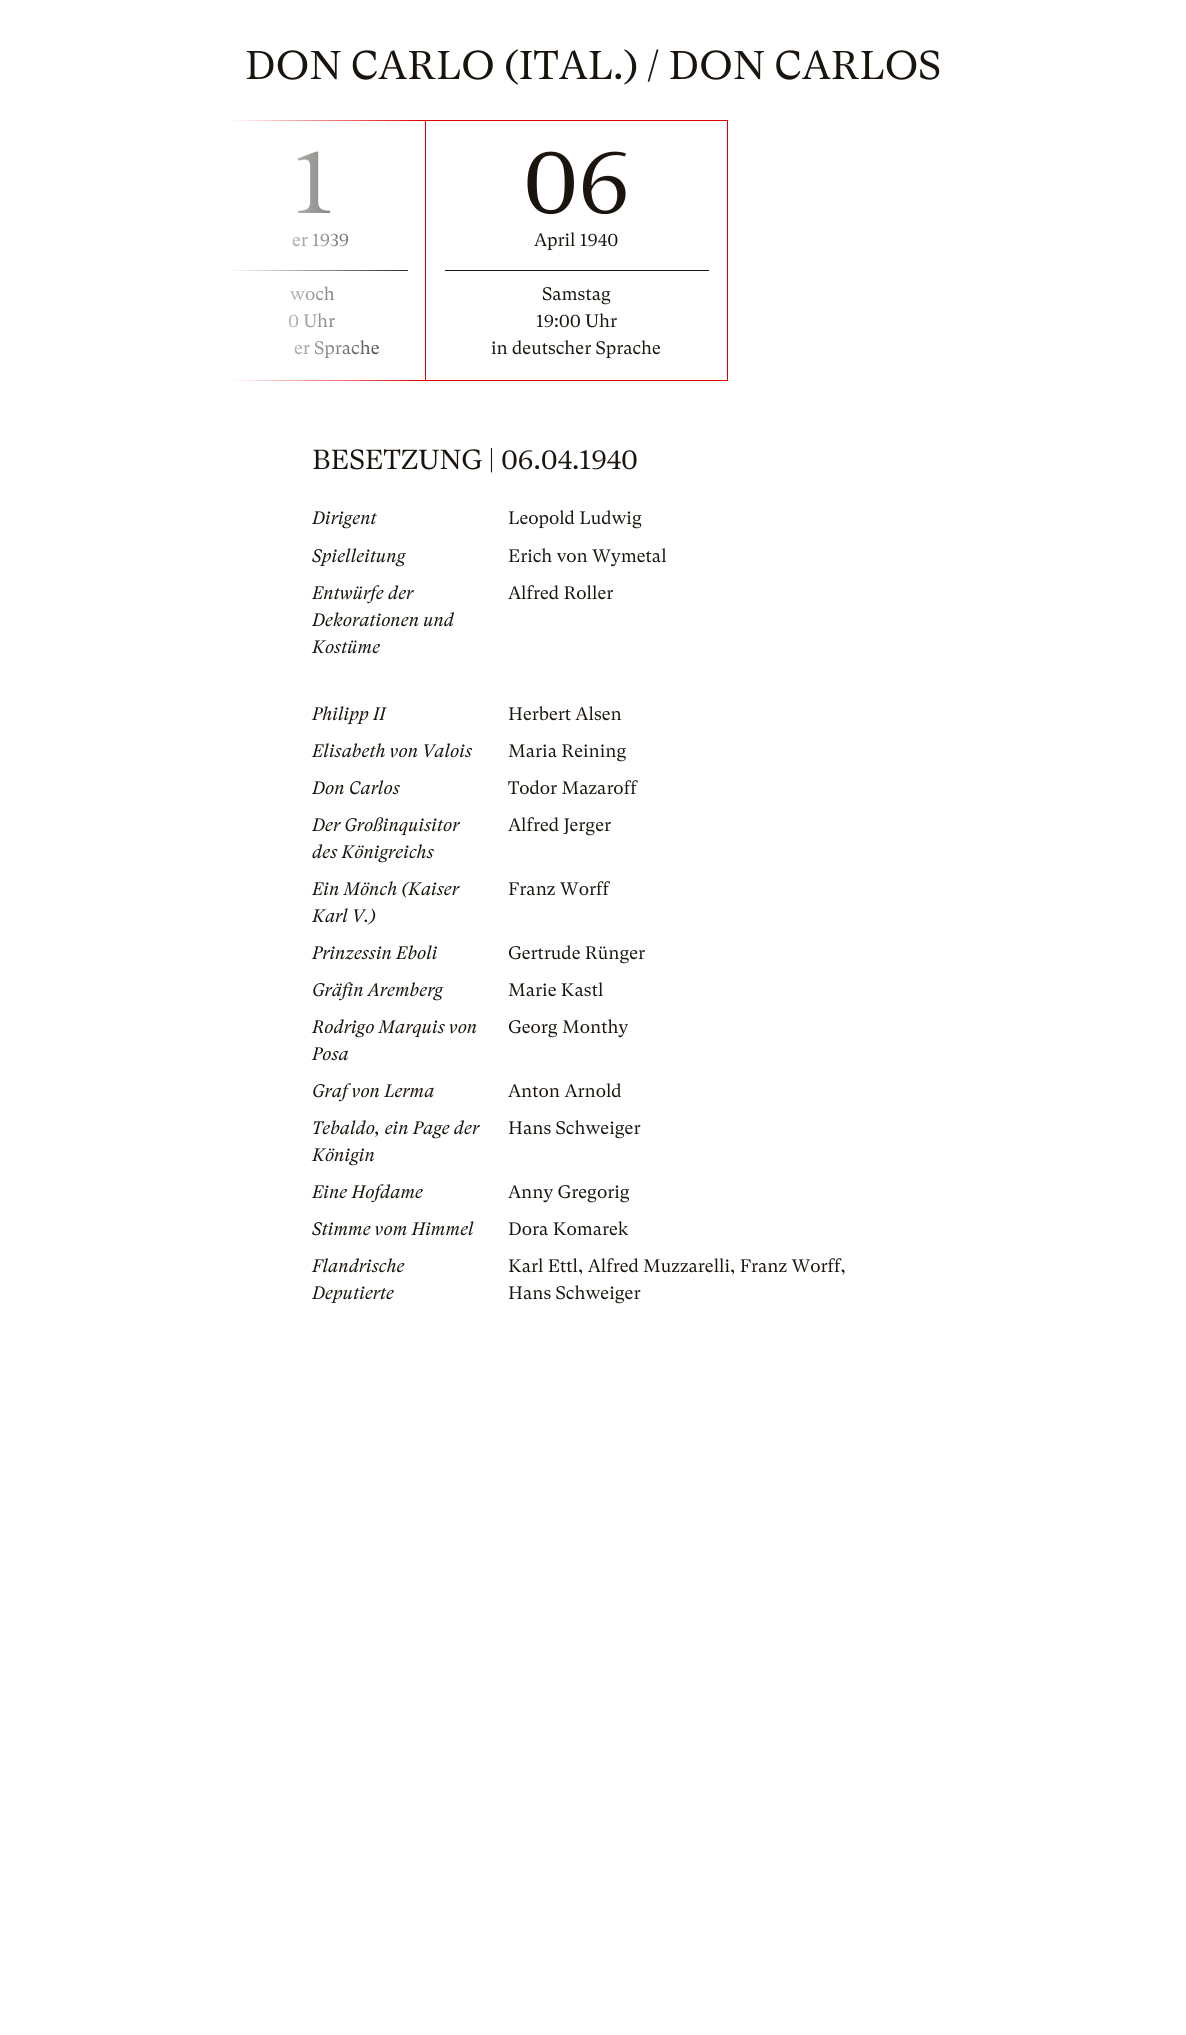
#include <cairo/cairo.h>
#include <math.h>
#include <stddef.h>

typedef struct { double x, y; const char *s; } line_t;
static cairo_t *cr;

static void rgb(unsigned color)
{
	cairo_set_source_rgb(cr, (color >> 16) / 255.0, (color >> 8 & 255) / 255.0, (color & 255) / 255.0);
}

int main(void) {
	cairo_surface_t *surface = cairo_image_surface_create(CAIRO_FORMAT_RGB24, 1186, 2035);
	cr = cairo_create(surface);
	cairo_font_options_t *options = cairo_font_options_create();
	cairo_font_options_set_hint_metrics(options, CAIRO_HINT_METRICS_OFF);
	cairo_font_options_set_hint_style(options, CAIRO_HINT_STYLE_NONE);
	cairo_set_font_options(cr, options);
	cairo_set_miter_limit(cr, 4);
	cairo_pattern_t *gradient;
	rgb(0xffffff);
	cairo_paint(cr);
	cairo_rectangle(cr, 163.5, 120.5, 262, 260);
	rgb(0xde0000);
	cairo_set_line_width(cr, 1);
	cairo_stroke(cr);
	rgb(0x19140e);
	cairo_rectangle(cr, 230, 270, 178, 1);
	cairo_fill(cr);
	cairo_rectangle(cr, 425.5, 120.5, 302, 260);
	rgb(0xde0000);
	cairo_stroke(cr);
	rgb(0x19140e);
	cairo_rectangle(cr, 445, 270, 264, 1);
	cairo_fill(cr);
	cairo_select_font_face(cr, "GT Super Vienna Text", CAIRO_FONT_SLANT_NORMAL, CAIRO_FONT_WEIGHT_NORMAL);
	cairo_set_font_size(cr, 40);
	cairo_move_to(cr, 245, 79);
	cairo_show_text(cr, "DON CARLO (ITAL.) / DON CARLOS");
	cairo_set_font_size(cr, 90);
	cairo_move_to(cr, 294, 213);
	cairo_show_text(cr, "1");
	cairo_set_font_size(cr, 18);
	{
		static const line_t items[] = {
			{292, 246, "er 1939"},
			{290, 300, "woch"},
			{288, 327, "0 Uhr"},
			{294, 354, "er Sprache"},
		};
		for (size_t i = 0; i < sizeof items / sizeof *items; i++) {
			cairo_move_to(cr, items[i].x, items[i].y);
			cairo_show_text(cr, items[i].s);
		}
	}
	gradient = cairo_pattern_create_linear(163, 251, 426, 251);
	cairo_pattern_add_color_stop_rgba(gradient, 0.25, 1, 1, 1, 1);
	cairo_pattern_add_color_stop_rgba(gradient, 1, 1, 1, 1, 0);
	cairo_set_source(cr, gradient);
	cairo_pattern_destroy(gradient);
	cairo_rectangle(cr, 163, 120, 259, 261);
	cairo_fill(cr);
	cairo_set_font_size(cr, 90);
	rgb(0x19140e);
	cairo_move_to(cr, 523, 213);
	cairo_show_text(cr, "06");
	cairo_set_font_size(cr, 18);
	{
		static const line_t items[] = {
			{534, 246, "April 1940"},
			{542, 300, "Samstag"},
			{536, 327, "19:00 Uhr"},
			{491, 354, "in deutscher Sprache"},
		};
		for (size_t i = 0; i < sizeof items / sizeof *items; i++) {
			cairo_move_to(cr, items[i].x, items[i].y);
			cairo_show_text(cr, items[i].s);
		}
	}
	cairo_set_font_size(cr, 27.5);
	cairo_move_to(cr, 312, 469);
	cairo_show_text(cr, "BESETZUNG | 06.04.1940");
	cairo_select_font_face(cr, "GT Super Vienna Text", CAIRO_FONT_SLANT_ITALIC, CAIRO_FONT_WEIGHT_NORMAL);
	cairo_set_font_size(cr, 18);
	cairo_move_to(cr, 312, 524);
	cairo_show_text(cr, "Dirigent");
	cairo_select_font_face(cr, "GT Super Vienna Text", CAIRO_FONT_SLANT_NORMAL, CAIRO_FONT_WEIGHT_NORMAL);
	cairo_move_to(cr, 508, 524);
	cairo_show_text(cr, "Leopold Ludwig");
	cairo_select_font_face(cr, "GT Super Vienna Text", CAIRO_FONT_SLANT_ITALIC, CAIRO_FONT_WEIGHT_NORMAL);
	cairo_move_to(cr, 312, 562);
	cairo_show_text(cr, "Spielleitung");
	cairo_select_font_face(cr, "GT Super Vienna Text", CAIRO_FONT_SLANT_NORMAL, CAIRO_FONT_WEIGHT_NORMAL);
	cairo_move_to(cr, 508, 562);
	cairo_show_text(cr, "Erich von Wymetal");
	cairo_select_font_face(cr, "GT Super Vienna Text", CAIRO_FONT_SLANT_ITALIC, CAIRO_FONT_WEIGHT_NORMAL);
	{
		static const line_t items[] = {
			{312, 599, "Entwürfe der"},
			{312, 626, "Dekorationen und"},
			{312, 653, "Kostüme"},
		};
		for (size_t i = 0; i < sizeof items / sizeof *items; i++) {
			cairo_move_to(cr, items[i].x, items[i].y);
			cairo_show_text(cr, items[i].s);
		}
	}
	cairo_select_font_face(cr, "GT Super Vienna Text", CAIRO_FONT_SLANT_NORMAL, CAIRO_FONT_WEIGHT_NORMAL);
	cairo_move_to(cr, 508, 599);
	cairo_show_text(cr, "Alfred Roller");
	cairo_select_font_face(cr, "GT Super Vienna Text", CAIRO_FONT_SLANT_ITALIC, CAIRO_FONT_WEIGHT_NORMAL);
	cairo_move_to(cr, 312, 720);
	cairo_show_text(cr, "Philipp II");
	cairo_select_font_face(cr, "GT Super Vienna Text", CAIRO_FONT_SLANT_NORMAL, CAIRO_FONT_WEIGHT_NORMAL);
	cairo_move_to(cr, 508, 720);
	cairo_show_text(cr, "Herbert Alsen");
	cairo_select_font_face(cr, "GT Super Vienna Text", CAIRO_FONT_SLANT_ITALIC, CAIRO_FONT_WEIGHT_NORMAL);
	cairo_move_to(cr, 312, 757);
	cairo_show_text(cr, "Elisabeth von Valois");
	cairo_select_font_face(cr, "GT Super Vienna Text", CAIRO_FONT_SLANT_NORMAL, CAIRO_FONT_WEIGHT_NORMAL);
	cairo_move_to(cr, 508, 757);
	cairo_show_text(cr, "Maria Reining");
	cairo_select_font_face(cr, "GT Super Vienna Text", CAIRO_FONT_SLANT_ITALIC, CAIRO_FONT_WEIGHT_NORMAL);
	cairo_move_to(cr, 312, 794);
	cairo_show_text(cr, "Don Carlos");
	cairo_select_font_face(cr, "GT Super Vienna Text", CAIRO_FONT_SLANT_NORMAL, CAIRO_FONT_WEIGHT_NORMAL);
	cairo_move_to(cr, 508, 794);
	cairo_show_text(cr, "Todor Mazaroff");
	cairo_select_font_face(cr, "GT Super Vienna Text", CAIRO_FONT_SLANT_ITALIC, CAIRO_FONT_WEIGHT_NORMAL);
	cairo_move_to(cr, 312, 831);
	cairo_show_text(cr, "Der Großinquisitor");
	cairo_move_to(cr, 312, 858);
	cairo_show_text(cr, "des Königreichs");
	cairo_select_font_face(cr, "GT Super Vienna Text", CAIRO_FONT_SLANT_NORMAL, CAIRO_FONT_WEIGHT_NORMAL);
	cairo_move_to(cr, 508, 831);
	cairo_show_text(cr, "Alfred Jerger");
	cairo_select_font_face(cr, "GT Super Vienna Text", CAIRO_FONT_SLANT_ITALIC, CAIRO_FONT_WEIGHT_NORMAL);
	cairo_move_to(cr, 312, 895);
	cairo_show_text(cr, "Ein Mönch (Kaiser");
	cairo_move_to(cr, 312, 922);
	cairo_show_text(cr, "Karl V.)");
	cairo_select_font_face(cr, "GT Super Vienna Text", CAIRO_FONT_SLANT_NORMAL, CAIRO_FONT_WEIGHT_NORMAL);
	cairo_move_to(cr, 508, 895);
	cairo_show_text(cr, "Franz Worff");
	cairo_select_font_face(cr, "GT Super Vienna Text", CAIRO_FONT_SLANT_ITALIC, CAIRO_FONT_WEIGHT_NORMAL);
	cairo_move_to(cr, 312, 959);
	cairo_show_text(cr, "Prinzessin Eboli");
	cairo_select_font_face(cr, "GT Super Vienna Text", CAIRO_FONT_SLANT_NORMAL, CAIRO_FONT_WEIGHT_NORMAL);
	cairo_move_to(cr, 508, 959);
	cairo_show_text(cr, "Gertrude Rünger");
	cairo_select_font_face(cr, "GT Super Vienna Text", CAIRO_FONT_SLANT_ITALIC, CAIRO_FONT_WEIGHT_NORMAL);
	cairo_move_to(cr, 312, 996);
	cairo_show_text(cr, "Gräfin Aremberg");
	cairo_select_font_face(cr, "GT Super Vienna Text", CAIRO_FONT_SLANT_NORMAL, CAIRO_FONT_WEIGHT_NORMAL);
	cairo_move_to(cr, 508, 996);
	cairo_show_text(cr, "Marie Kastl");
	cairo_select_font_face(cr, "GT Super Vienna Text", CAIRO_FONT_SLANT_ITALIC, CAIRO_FONT_WEIGHT_NORMAL);
	cairo_move_to(cr, 312, 1033);
	cairo_show_text(cr, "Rodrigo Marquis von");
	cairo_move_to(cr, 312, 1060);
	cairo_show_text(cr, "Posa");
	cairo_select_font_face(cr, "GT Super Vienna Text", CAIRO_FONT_SLANT_NORMAL, CAIRO_FONT_WEIGHT_NORMAL);
	cairo_move_to(cr, 508, 1033);
	cairo_show_text(cr, "Georg Monthy");
	cairo_select_font_face(cr, "GT Super Vienna Text", CAIRO_FONT_SLANT_ITALIC, CAIRO_FONT_WEIGHT_NORMAL);
	cairo_move_to(cr, 312, 1097);
	cairo_show_text(cr, "Graf von Lerma");
	cairo_select_font_face(cr, "GT Super Vienna Text", CAIRO_FONT_SLANT_NORMAL, CAIRO_FONT_WEIGHT_NORMAL);
	cairo_move_to(cr, 508, 1097);
	cairo_show_text(cr, "Anton Arnold");
	cairo_select_font_face(cr, "GT Super Vienna Text", CAIRO_FONT_SLANT_ITALIC, CAIRO_FONT_WEIGHT_NORMAL);
	cairo_move_to(cr, 312, 1134);
	cairo_show_text(cr, "Tebaldo, ein Page der");
	cairo_move_to(cr, 312, 1161);
	cairo_show_text(cr, "Königin");
	cairo_select_font_face(cr, "GT Super Vienna Text", CAIRO_FONT_SLANT_NORMAL, CAIRO_FONT_WEIGHT_NORMAL);
	cairo_move_to(cr, 508, 1134);
	cairo_show_text(cr, "Hans Schweiger");
	cairo_select_font_face(cr, "GT Super Vienna Text", CAIRO_FONT_SLANT_ITALIC, CAIRO_FONT_WEIGHT_NORMAL);
	cairo_move_to(cr, 312, 1198);
	cairo_show_text(cr, "Eine Hofdame");
	cairo_select_font_face(cr, "GT Super Vienna Text", CAIRO_FONT_SLANT_NORMAL, CAIRO_FONT_WEIGHT_NORMAL);
	cairo_move_to(cr, 508, 1198);
	cairo_show_text(cr, "Anny Gregorig");
	cairo_select_font_face(cr, "GT Super Vienna Text", CAIRO_FONT_SLANT_ITALIC, CAIRO_FONT_WEIGHT_NORMAL);
	cairo_move_to(cr, 312, 1235);
	cairo_show_text(cr, "Stimme vom Himmel");
	cairo_select_font_face(cr, "GT Super Vienna Text", CAIRO_FONT_SLANT_NORMAL, CAIRO_FONT_WEIGHT_NORMAL);
	cairo_move_to(cr, 508, 1235);
	cairo_show_text(cr, "Dora Komarek");
	cairo_select_font_face(cr, "GT Super Vienna Text", CAIRO_FONT_SLANT_ITALIC, CAIRO_FONT_WEIGHT_NORMAL);
	cairo_move_to(cr, 312, 1272);
	cairo_show_text(cr, "Flandrische");
	cairo_move_to(cr, 312, 1299);
	cairo_show_text(cr, "Deputierte");
	cairo_select_font_face(cr, "GT Super Vienna Text", CAIRO_FONT_SLANT_NORMAL, CAIRO_FONT_WEIGHT_NORMAL);
	cairo_move_to(cr, 508, 1272);
	cairo_show_text(cr, "Karl Ettl, Alfred Muzzarelli, Franz Worff,");
	cairo_move_to(cr, 508, 1299);
	cairo_show_text(cr, "Hans Schweiger");
	cairo_surface_write_to_png(surface, "page.png");
	cairo_font_options_destroy(options);
	cairo_destroy(cr);
	cairo_surface_destroy(surface);
	return 0;
}
